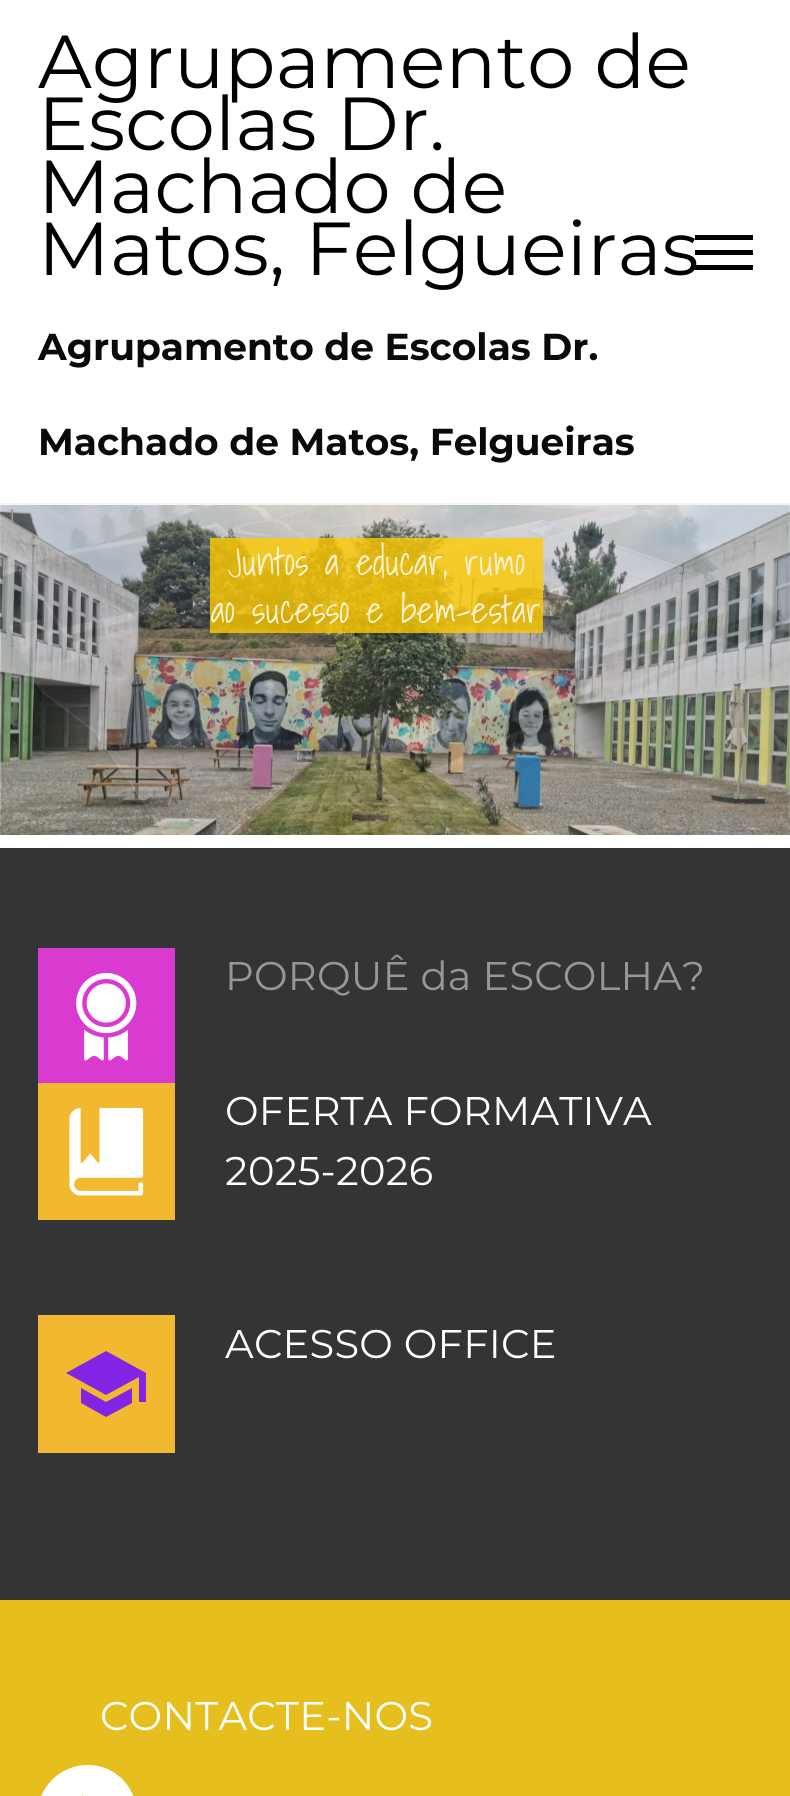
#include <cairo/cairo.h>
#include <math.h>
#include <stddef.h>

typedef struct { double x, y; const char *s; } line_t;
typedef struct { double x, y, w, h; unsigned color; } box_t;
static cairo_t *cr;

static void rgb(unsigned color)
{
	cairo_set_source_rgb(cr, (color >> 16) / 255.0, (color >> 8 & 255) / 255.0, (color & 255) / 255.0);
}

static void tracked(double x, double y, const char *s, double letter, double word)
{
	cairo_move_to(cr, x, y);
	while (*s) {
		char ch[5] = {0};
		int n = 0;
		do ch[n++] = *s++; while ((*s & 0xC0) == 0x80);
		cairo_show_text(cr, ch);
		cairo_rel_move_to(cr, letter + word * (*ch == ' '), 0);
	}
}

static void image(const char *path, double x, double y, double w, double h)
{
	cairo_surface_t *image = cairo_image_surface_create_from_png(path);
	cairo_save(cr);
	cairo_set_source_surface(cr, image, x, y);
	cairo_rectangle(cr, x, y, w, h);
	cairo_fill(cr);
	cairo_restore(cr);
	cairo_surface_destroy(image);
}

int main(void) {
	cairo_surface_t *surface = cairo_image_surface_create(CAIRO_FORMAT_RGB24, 790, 1796);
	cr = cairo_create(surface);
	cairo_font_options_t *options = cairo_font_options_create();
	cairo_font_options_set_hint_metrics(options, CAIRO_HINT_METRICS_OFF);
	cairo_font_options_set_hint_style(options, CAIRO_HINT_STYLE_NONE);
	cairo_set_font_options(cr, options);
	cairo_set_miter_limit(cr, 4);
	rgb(0xffffff);
	cairo_paint(cr);
	{
		static const box_t items[] = {
			{0, 503, 790, 3, 0xf5f5f5},
			{695, 235, 58, 5, 0x000000},
			{695, 250, 58, 5, 0x000000},
			{695, 265, 58, 5, 0x000000},
		};
		for (size_t i = 0; i < sizeof items / sizeof *items; i++) {
			rgb(items[i].color);
			cairo_rectangle(cr, items[i].x, items[i].y, items[i].w, items[i].h);
			cairo_fill(cr);
		}
	}
	image("img/1.png", 0, 505, 790, 330);
	image("img/2.png", 0, 505, 790, 330);
	cairo_set_source_rgba(cr, 1, 0.8, 0, 0.79);
	cairo_rectangle(cr, 210, 538, 333, 95);
	cairo_fill(cr);
	rgb(0x333436);
	cairo_rectangle(cr, 0, 848, 790, 752);
	cairo_fill(cr);
	rgb(0xd93ad0);
	cairo_rectangle(cr, 38, 948, 137, 135);
	cairo_fill(cr);
	image("img/3.png", 76, 973, 61, 88);
	rgb(0xf2b930);
	cairo_rectangle(cr, 38, 1083, 137, 137);
	cairo_fill(cr);
	image("img/4.png", 69, 1108, 75, 88);
	cairo_rectangle(cr, 38, 1315, 137, 138);
	cairo_fill(cr);
	rgb(0x8224e3);
	cairo_new_path(cr);
	cairo_move_to(cr, 81, 1388);
	cairo_line_to(cr, 81, 1403);
	cairo_line_to(cr, 106, 1417);
	cairo_line_to(cr, 132, 1403);
	cairo_line_to(cr, 132, 1388);
	cairo_line_to(cr, 106, 1402);
	cairo_close_path(cr);
	cairo_move_to(cr, 106, 1351);
	cairo_line_to(cr, 66, 1373);
	cairo_line_to(cr, 106, 1395);
	cairo_line_to(cr, 139, 1377);
	cairo_line_to(cr, 139, 1402);
	cairo_line_to(cr, 146, 1402);
	cairo_line_to(cr, 146, 1373);
	cairo_close_path(cr);
	cairo_fill(cr);
	rgb(0xe6be1e);
	cairo_rectangle(cr, 0, 1600, 790, 196);
	cairo_fill(cr);
	rgb(0xffffff);
	cairo_new_path(cr);
	cairo_move_to(cr, 88, 1765);
	cairo_curve_to(cr, 62, 1765, 41, 1784, 38, 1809);
	cairo_line_to(cr, 82, 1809);
	cairo_line_to(cr, 82, 1795);
	cairo_line_to(cr, 108, 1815);
	cairo_line_to(cr, 82, 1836);
	cairo_line_to(cr, 82, 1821);
	cairo_line_to(cr, 39, 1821);
	cairo_curve_to(cr, 45, 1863, 99, 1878, 125, 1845);
	cairo_curve_to(cr, 131, 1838, 135, 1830, 136, 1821);
	cairo_curve_to(cr, 138, 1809, 135, 1796, 128, 1786);
	cairo_curve_to(cr, 119, 1773, 104, 1765, 88, 1765);
	cairo_close_path(cr);
	cairo_fill(cr);
	cairo_select_font_face(cr, "Montserrat", CAIRO_FONT_SLANT_NORMAL, CAIRO_FONT_WEIGHT_NORMAL);
	cairo_set_font_size(cr, 75);
	rgb(0x000000);
	{
		static const line_t items[] = {
			{38, 88, "Agrupamento de"},
			{38, 150, "Escolas Dr."},
			{38, 213, "Machado de"},
			{38, 275, "Matos, Felgueiras"},
		};
		for (size_t i = 0; i < sizeof items / sizeof *items; i++) {
			tracked(items[i].x, items[i].y, items[i].s, 0.25, 0);
		}
	}
	cairo_select_font_face(cr, "Montserrat", CAIRO_FONT_SLANT_NORMAL, CAIRO_FONT_WEIGHT_BOLD);
	cairo_set_font_size(cr, 37.5);
	rgb(0x0a0a0a);
	cairo_move_to(cr, 38, 360);
	cairo_show_text(cr, "Agrupamento de Escolas Dr.");
	cairo_move_to(cr, 38, 455);
	cairo_show_text(cr, "Machado de Matos, Felgueiras");
	cairo_select_font_face(cr, "Shadows Into Light Light", CAIRO_FONT_SLANT_NORMAL, CAIRO_FONT_WEIGHT_NORMAL);
	rgb(0xfaf1cf);
	cairo_move_to(cr, 228, 575);
	cairo_show_text(cr, "Juntos a educar, rumo");
	cairo_move_to(cr, 211, 623);
	cairo_show_text(cr, "ao sucesso e bem-estar");
	cairo_select_font_face(cr, "Montserrat", CAIRO_FONT_SLANT_NORMAL, CAIRO_FONT_WEIGHT_NORMAL);
	cairo_set_font_size(cr, 40);
	rgb(0x979797);
	tracked(225, 990, "PORQUÊ da ESCOLHA?", 0.25, 0);
	rgb(0xffffff);
	{
		static const line_t items[] = {
			{225, 1125, "OFERTA FORMATIVA"},
			{225, 1185, "2025-2026"},
			{225, 1358, "ACESSO OFFICE"},
			{100, 1730, "CONTACTE-NOS"},
		};
		for (size_t i = 0; i < sizeof items / sizeof *items; i++) {
			tracked(items[i].x, items[i].y, items[i].s, 0.25, 0);
		}
	}
	cairo_surface_write_to_png(surface, "page.png");
	cairo_font_options_destroy(options);
	cairo_destroy(cr);
	cairo_surface_destroy(surface);
	return 0;
}
